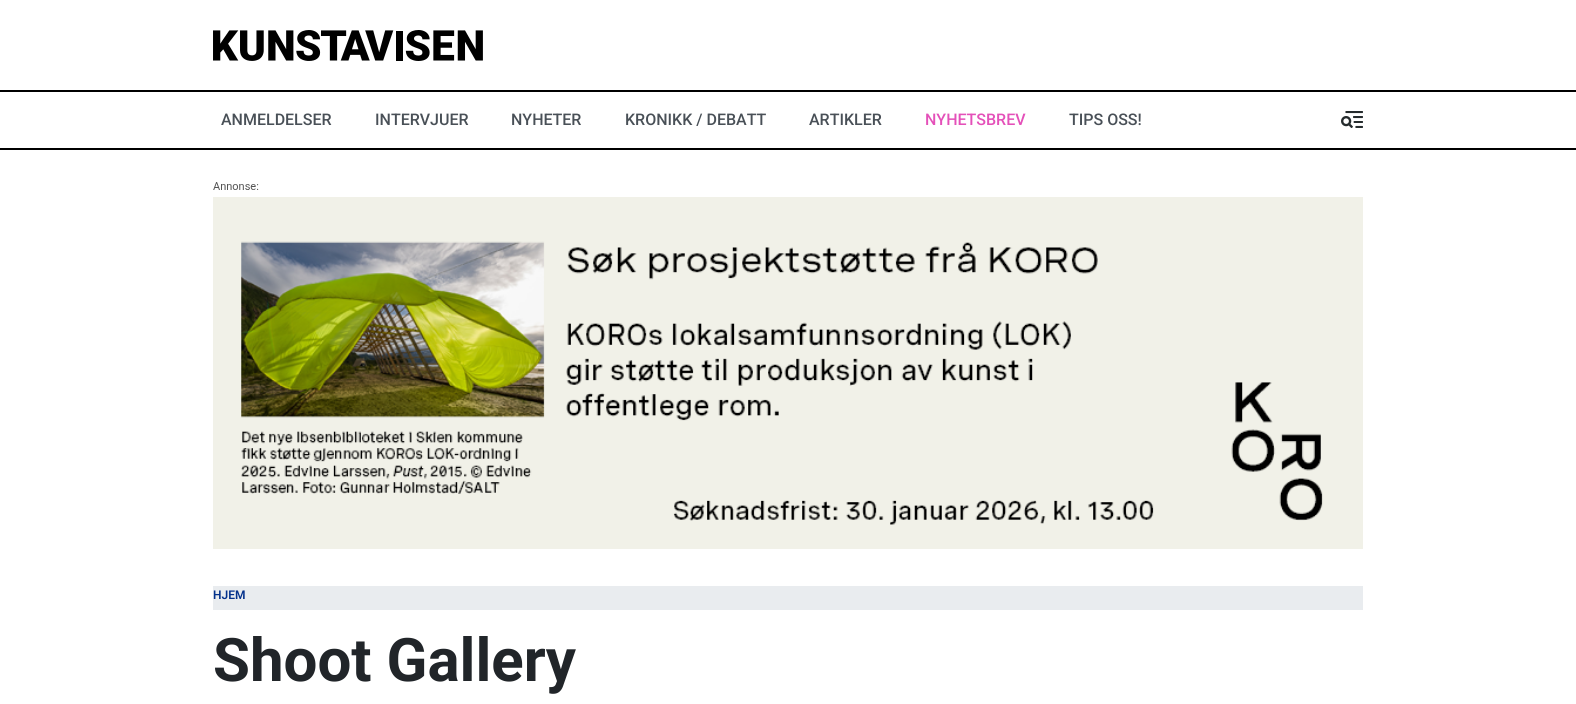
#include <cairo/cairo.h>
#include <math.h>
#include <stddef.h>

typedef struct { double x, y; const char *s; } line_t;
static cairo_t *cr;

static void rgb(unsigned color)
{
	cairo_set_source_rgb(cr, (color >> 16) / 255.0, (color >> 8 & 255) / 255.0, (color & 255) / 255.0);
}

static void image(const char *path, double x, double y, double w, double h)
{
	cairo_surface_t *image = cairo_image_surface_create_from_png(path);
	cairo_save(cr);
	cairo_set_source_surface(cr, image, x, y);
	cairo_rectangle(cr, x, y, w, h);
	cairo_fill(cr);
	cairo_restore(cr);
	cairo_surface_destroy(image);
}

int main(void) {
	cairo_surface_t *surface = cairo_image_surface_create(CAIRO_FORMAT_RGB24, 1576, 704);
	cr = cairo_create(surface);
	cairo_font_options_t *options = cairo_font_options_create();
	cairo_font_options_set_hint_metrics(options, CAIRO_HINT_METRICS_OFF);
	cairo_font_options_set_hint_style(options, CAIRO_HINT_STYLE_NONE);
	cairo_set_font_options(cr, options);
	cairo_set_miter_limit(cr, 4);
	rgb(0xffffff);
	cairo_paint(cr);
	image("img/1.png", 213, 30, 270, 31);
	rgb(0x000000);
	cairo_rectangle(cr, 0, 90, 1576, 2);
	cairo_fill(cr);
	cairo_rectangle(cr, 0, 148, 1576, 2);
	cairo_fill(cr);
	image("img/2.png", 1341, 111, 22, 17);
	image("img/3.png", 213, 182, 1150, 367);
	rgb(0xe9ecef);
	cairo_rectangle(cr, 213, 586, 1150, 24);
	cairo_fill(cr);
	cairo_select_font_face(cr, "Roboto Medium", CAIRO_FONT_SLANT_NORMAL, CAIRO_FONT_WEIGHT_NORMAL);
	cairo_set_font_size(cr, 16);
	rgb(0x495057);
	{
		static const line_t items[] = {
			{221, 125, "ANMELDELSER"},
			{375, 125, "INTERVJUER"},
			{511, 125, "NYHETER"},
			{625, 125, "KRONIKK / DEBATT"},
			{809, 125, "ARTIKLER"},
		};
		for (size_t i = 0; i < sizeof items / sizeof *items; i++) {
			cairo_move_to(cr, items[i].x, items[i].y);
			cairo_show_text(cr, items[i].s);
		}
	}
	rgb(0xe450b9);
	cairo_move_to(cr, 925, 125);
	cairo_show_text(cr, "NYHETSBREV");
	rgb(0x495057);
	cairo_move_to(cr, 1069, 125);
	cairo_show_text(cr, "TIPS OSS!");
	cairo_select_font_face(cr, "Roboto SemiBold", CAIRO_FONT_SLANT_NORMAL, CAIRO_FONT_WEIGHT_NORMAL);
	cairo_set_font_size(cr, 12);
	rgb(0x03318c);
	cairo_move_to(cr, 213, 599);
	cairo_show_text(cr, "HJEM");
	cairo_select_font_face(cr, "Roboto", CAIRO_FONT_SLANT_NORMAL, CAIRO_FONT_WEIGHT_BOLD);
	cairo_set_font_size(cr, 60);
	rgb(0x212529);
	cairo_move_to(cr, 213, 681);
	cairo_show_text(cr, "Shoot Gallery");
	cairo_surface_write_to_png(surface, "page.png");
	cairo_font_options_destroy(options);
	cairo_destroy(cr);
	cairo_surface_destroy(surface);
	return 0;
}
